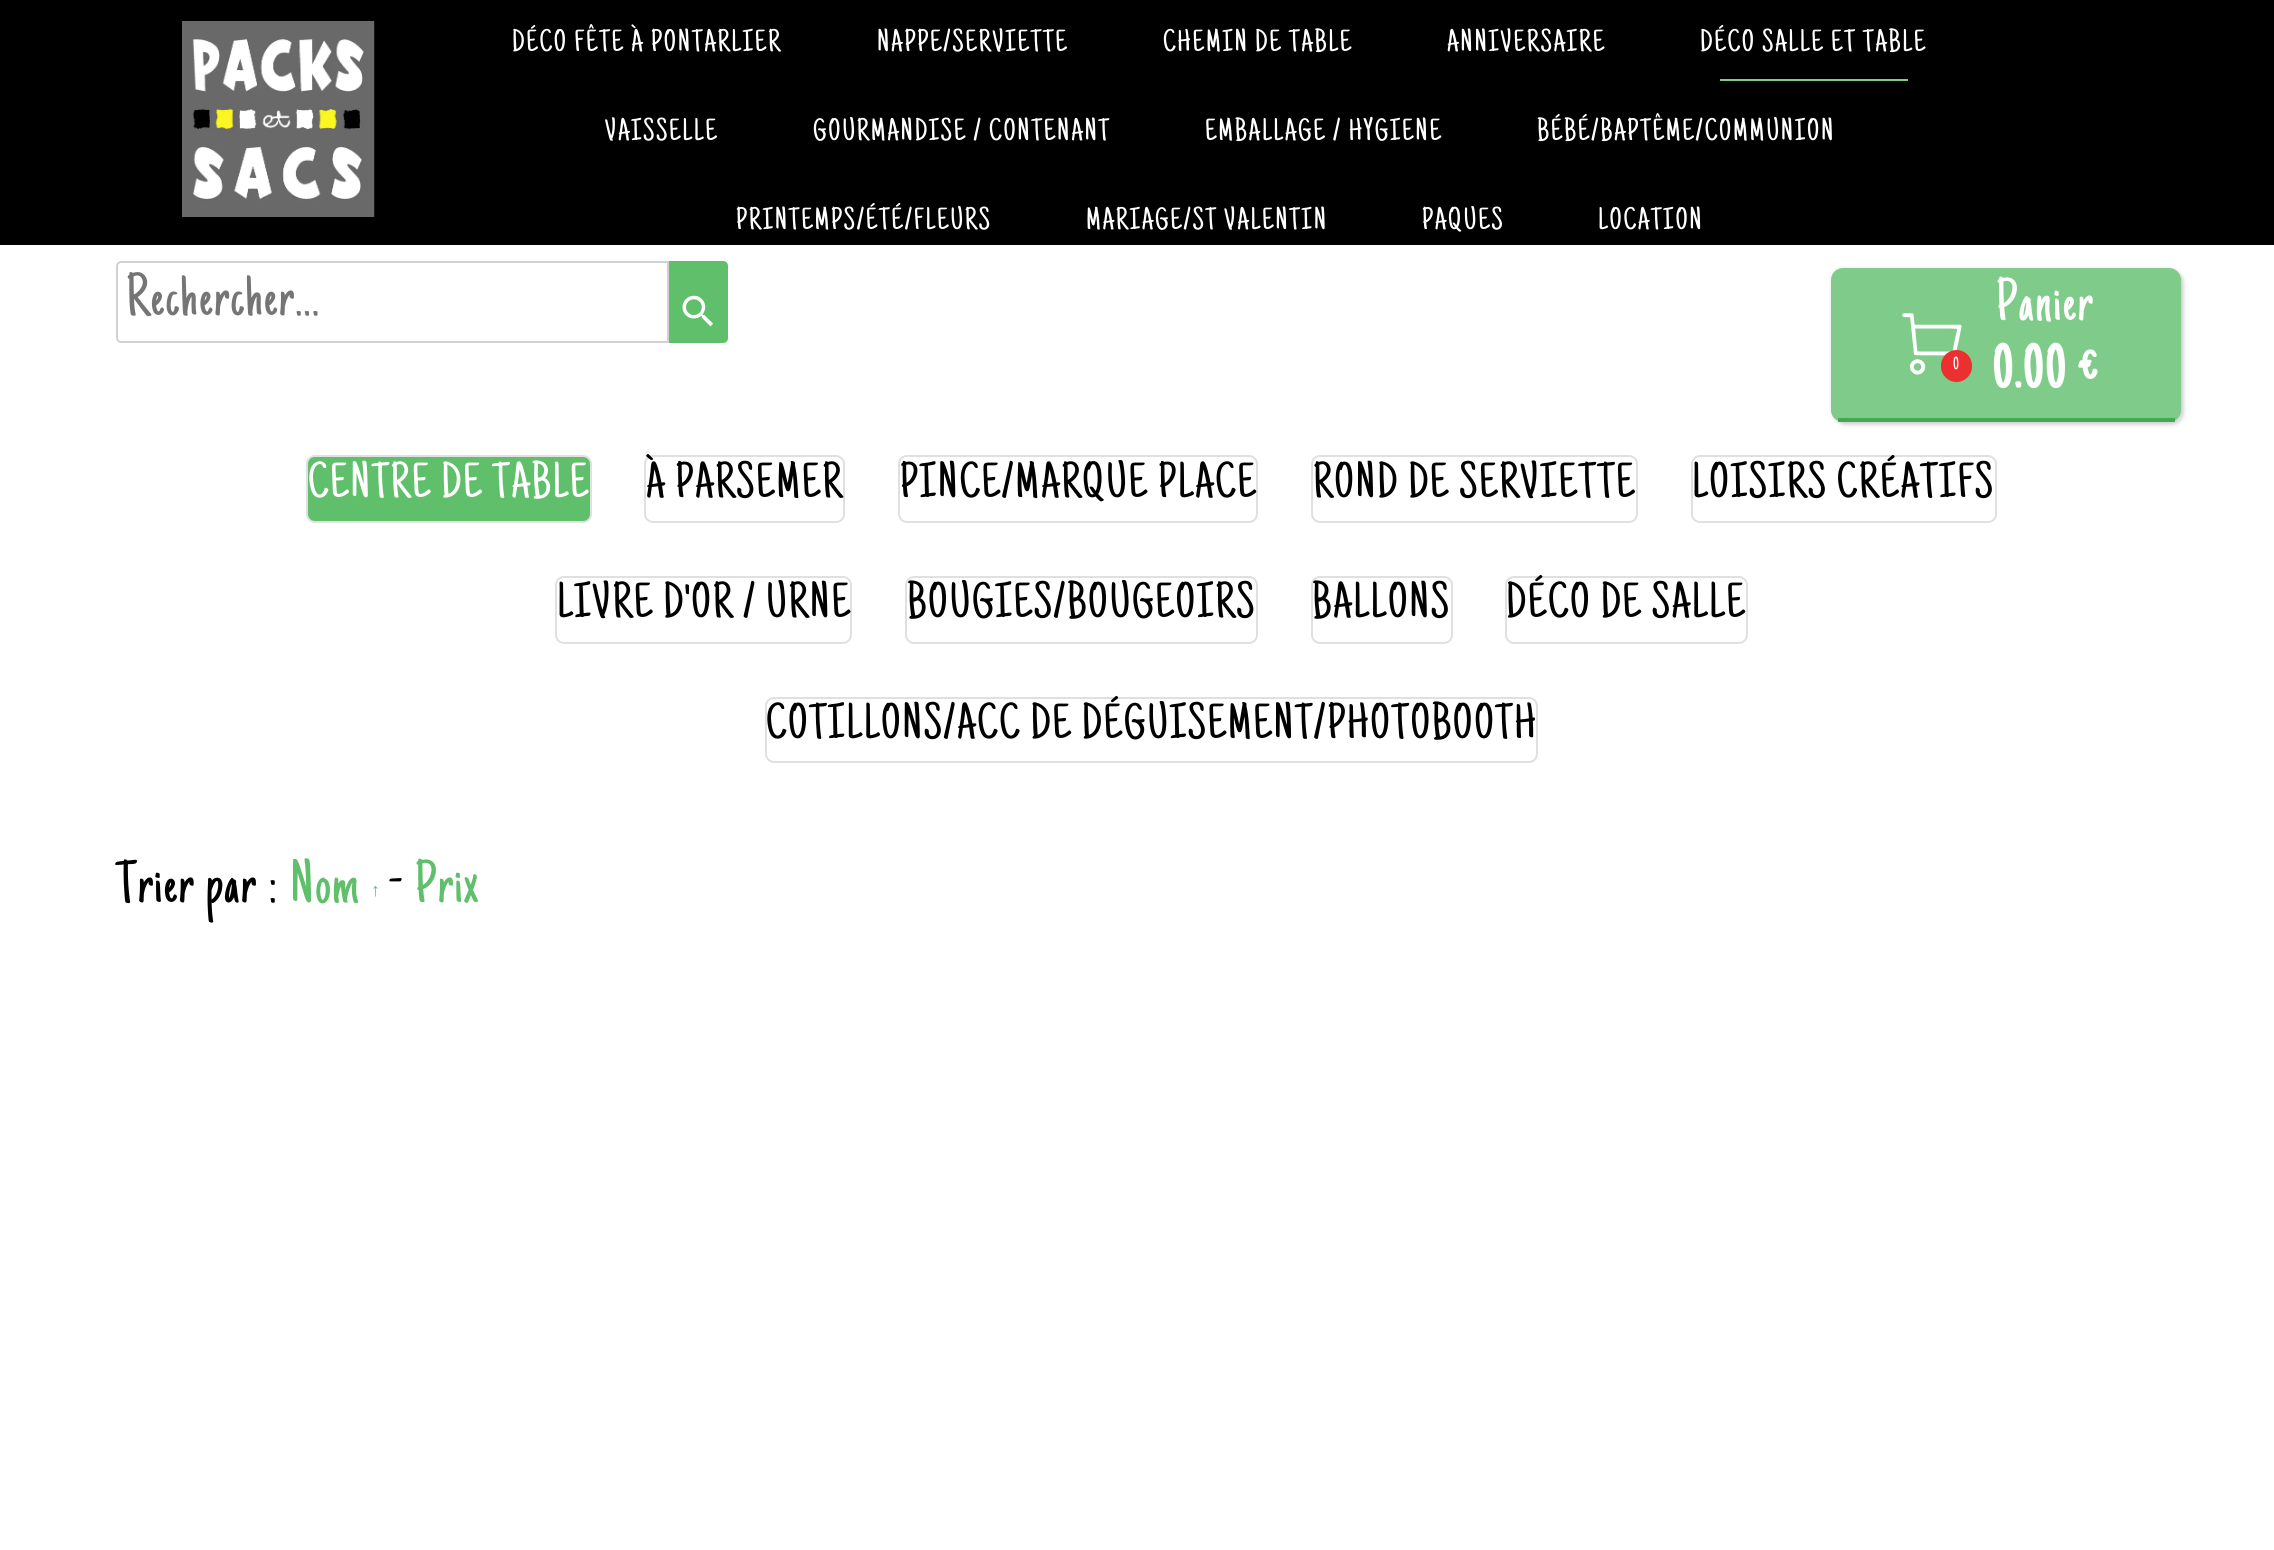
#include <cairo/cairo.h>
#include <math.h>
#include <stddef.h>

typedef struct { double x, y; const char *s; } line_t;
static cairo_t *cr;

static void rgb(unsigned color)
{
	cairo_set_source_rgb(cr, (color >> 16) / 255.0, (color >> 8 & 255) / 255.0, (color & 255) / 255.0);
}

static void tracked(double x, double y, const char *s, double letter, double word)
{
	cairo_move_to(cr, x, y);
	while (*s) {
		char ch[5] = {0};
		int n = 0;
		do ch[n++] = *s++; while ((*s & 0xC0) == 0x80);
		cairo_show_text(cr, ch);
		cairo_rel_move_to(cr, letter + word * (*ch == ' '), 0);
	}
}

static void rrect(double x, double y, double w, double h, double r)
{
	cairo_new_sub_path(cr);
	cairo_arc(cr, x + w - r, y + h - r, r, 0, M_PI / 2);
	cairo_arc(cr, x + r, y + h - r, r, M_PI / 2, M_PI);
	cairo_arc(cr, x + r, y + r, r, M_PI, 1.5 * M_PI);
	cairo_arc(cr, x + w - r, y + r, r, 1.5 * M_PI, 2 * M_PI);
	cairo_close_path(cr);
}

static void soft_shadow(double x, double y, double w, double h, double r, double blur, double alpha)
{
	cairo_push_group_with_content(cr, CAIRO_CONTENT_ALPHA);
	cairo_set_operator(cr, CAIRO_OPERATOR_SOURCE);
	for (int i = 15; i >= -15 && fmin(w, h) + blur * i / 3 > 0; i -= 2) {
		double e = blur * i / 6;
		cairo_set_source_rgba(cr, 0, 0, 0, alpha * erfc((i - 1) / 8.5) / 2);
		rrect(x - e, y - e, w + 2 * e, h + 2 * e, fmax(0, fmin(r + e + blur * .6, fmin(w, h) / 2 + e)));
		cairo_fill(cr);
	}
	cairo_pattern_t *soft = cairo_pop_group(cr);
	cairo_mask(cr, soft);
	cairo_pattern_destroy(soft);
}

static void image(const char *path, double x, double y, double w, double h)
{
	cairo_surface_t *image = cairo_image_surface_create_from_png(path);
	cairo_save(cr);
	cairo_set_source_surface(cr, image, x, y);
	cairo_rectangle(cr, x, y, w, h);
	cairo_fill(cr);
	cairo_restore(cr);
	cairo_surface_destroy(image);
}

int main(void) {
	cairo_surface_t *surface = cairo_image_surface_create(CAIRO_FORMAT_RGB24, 2274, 1550);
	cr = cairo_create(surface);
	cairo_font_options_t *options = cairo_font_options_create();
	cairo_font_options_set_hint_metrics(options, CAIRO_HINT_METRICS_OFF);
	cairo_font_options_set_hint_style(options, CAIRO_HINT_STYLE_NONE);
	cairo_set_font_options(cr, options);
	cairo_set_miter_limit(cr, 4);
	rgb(0xffffff);
	cairo_paint(cr);
	rgb(0x000000);
	cairo_rectangle(cr, 0, 0, 2274, 245);
	cairo_fill(cr);
	image("img/1.png", 182, 21, 193, 196);
	rgb(0x7fcc8a);
	cairo_rectangle(cr, 1720, 79, 188, 2);
	cairo_fill(cr);
	cairo_new_path(cr);
	cairo_move_to(cr, 121, 262);
	cairo_line_to(cr, 668, 262);
	cairo_line_to(cr, 668, 342);
	cairo_line_to(cr, 121, 342);
	cairo_curve_to(cr, 119, 342, 117, 340, 117, 338);
	cairo_line_to(cr, 117, 266);
	cairo_curve_to(cr, 117, 264, 119, 262, 121, 262);
	cairo_close_path(cr);
	rgb(0xd1d1d1);
	cairo_stroke(cr);
	rgb(0x5fbf6b);
	cairo_new_path(cr);
	cairo_move_to(cr, 669, 261);
	cairo_line_to(cr, 723, 261);
	cairo_curve_to(cr, 726, 261, 728, 263, 728, 266);
	cairo_line_to(cr, 728, 338);
	cairo_curve_to(cr, 728, 341, 726, 343, 723, 343);
	cairo_line_to(cr, 669, 343);
	cairo_close_path(cr);
	cairo_fill(cr);
	image("img/2.png", 682, 295, 31, 32);
	rgb(0x000000);
	soft_shadow(1834, 271, 350, 154, 12, 2, 0.15);
	soft_shadow(1831, 268, 350, 154, 12, 2, 0.1);
	rgb(0x7fcc8a);
	rrect(1831, 268, 350, 154, 12);
	cairo_fill(cr);
	rgb(0x43a850);
	cairo_rectangle(cr, 1838, 418, 337, 4);
	cairo_fill(cr);
	image("img/3.png", 1902, 313, 60, 62);
	rgb(0xec2f2f);
	rrect(1941, 350, 31, 32, 15.5);
	cairo_fill(cr);
	rgb(0x5fbf6b);
	rrect(307, 456, 284, 66, 8);
	cairo_fill_preserve(cr);
	rgb(0xe0e0e0);
	cairo_stroke(cr);
	rrect(645, 456, 199, 66, 8);
	cairo_stroke(cr);
	rrect(899, 456, 358, 66, 8);
	cairo_stroke(cr);
	rrect(1312, 456, 325, 66, 8);
	cairo_stroke(cr);
	rrect(1692, 456, 304, 66, 8);
	cairo_stroke(cr);
	rrect(556, 577, 295, 66, 8);
	cairo_stroke(cr);
	rrect(906, 577, 351, 66, 8);
	cairo_stroke(cr);
	rrect(1312, 577, 140, 66, 8);
	cairo_stroke(cr);
	rrect(1506, 577, 241, 66, 8);
	cairo_stroke(cr);
	rrect(766, 698, 771, 64, 8);
	cairo_stroke(cr);
	cairo_select_font_face(cr, "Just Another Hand", CAIRO_FONT_SLANT_NORMAL, CAIRO_FONT_WEIGHT_NORMAL);
	cairo_set_font_size(cr, 31.5);
	rgb(0xffffff);
	{
		static const line_t items[] = {
			{512, 51, "DÉCO FÊTE À PONTARLIER"},
			{877, 51, "NAPPE/SERVIETTE"},
			{1163, 51, "CHEMIN DE TABLE"},
			{1447, 51, "ANNIVERSAIRE"},
			{1700, 51, "DÉCO SALLE ET TABLE"},
			{605, 140, "VAISSELLE"},
			{813, 140, "GOURMANDISE / CONTENANT"},
			{1205, 140, "EMBALLAGE / HYGIENE"},
			{1537, 140, "BÉBÉ/BAPTÊME/COMMUNION"},
			{736, 229, "PRINTEMPS/ÉTÉ/FLEURS"},
			{1086, 229, "MARIAGE/ST VALENTIN"},
			{1422, 229, "PAQUES"},
			{1598, 229, "LOCATION"},
		};
		for (size_t i = 0; i < sizeof items / sizeof *items; i++) {
			tracked(items[i].x, items[i].y, items[i].s, 1.85, 0);
		}
	}
	cairo_set_font_size(cr, 61);
	rgb(0x757575);
	tracked(126, 315, "Rechercher...", 1.85, 0);
	cairo_set_font_size(cr, 18);
	rgb(0xffffff);
	tracked(1953, 369, "0", 1.85, 0);
	cairo_set_font_size(cr, 61);
	tracked(1996, 320, "Panier", 1.85, 0);
	cairo_select_font_face(cr, "Just Another Hand", CAIRO_FONT_SLANT_NORMAL, CAIRO_FONT_WEIGHT_BOLD);
	tracked(1992, 387, "0.00 €", 1.85, 0);
	cairo_select_font_face(cr, "Just Another Hand", CAIRO_FONT_SLANT_NORMAL, CAIRO_FONT_WEIGHT_NORMAL);
	cairo_set_font_size(cr, 50.75);
	tracked(308, 497, "CENTRE DE TABLE", 1.85, 0);
	rgb(0x000000);
	{
		static const line_t items[] = {
			{646, 497, "À PARSEMER"},
			{900, 497, "PINCE/MARQUE PLACE"},
			{1313, 497, "ROND DE SERVIETTE"},
			{1692, 497, "LOISIRS CRÉATIFS"},
			{557, 617, "LIVRE D'OR / URNE"},
			{907, 617, "BOUGIES/BOUGEOIRS"},
			{1312, 617, "BALLONS"},
			{1506, 617, "DÉCO DE SALLE"},
			{766, 738, "COTILLONS/ACC DE DÉGUISEMENT/PHOTOBOOTH"},
		};
		for (size_t i = 0; i < sizeof items / sizeof *items; i++) {
			tracked(items[i].x, items[i].y, items[i].s, 1.85, 0);
		}
	}
	cairo_set_font_size(cr, 61);
	tracked(116, 902, "Trier par :", 1.85, 0);
	rgb(0x5fbf6b);
	tracked(290, 902, "Nom", 1.85, 0);
	cairo_select_font_face(cr, "Liberation Serif", CAIRO_FONT_SLANT_NORMAL, CAIRO_FONT_WEIGHT_NORMAL);
	cairo_set_font_size(cr, 18);
	tracked(371, 896, "↑", 1.85, 0);
	cairo_select_font_face(cr, "Just Another Hand", CAIRO_FONT_SLANT_NORMAL, CAIRO_FONT_WEIGHT_NORMAL);
	cairo_set_font_size(cr, 61);
	rgb(0x000000);
	tracked(389, 902, "-", 1.85, 0);
	rgb(0x5fbf6b);
	tracked(415, 902, "Prix", 1.85, 0);
	cairo_surface_write_to_png(surface, "page.png");
	cairo_font_options_destroy(options);
	cairo_destroy(cr);
	cairo_surface_destroy(surface);
	return 0;
}
